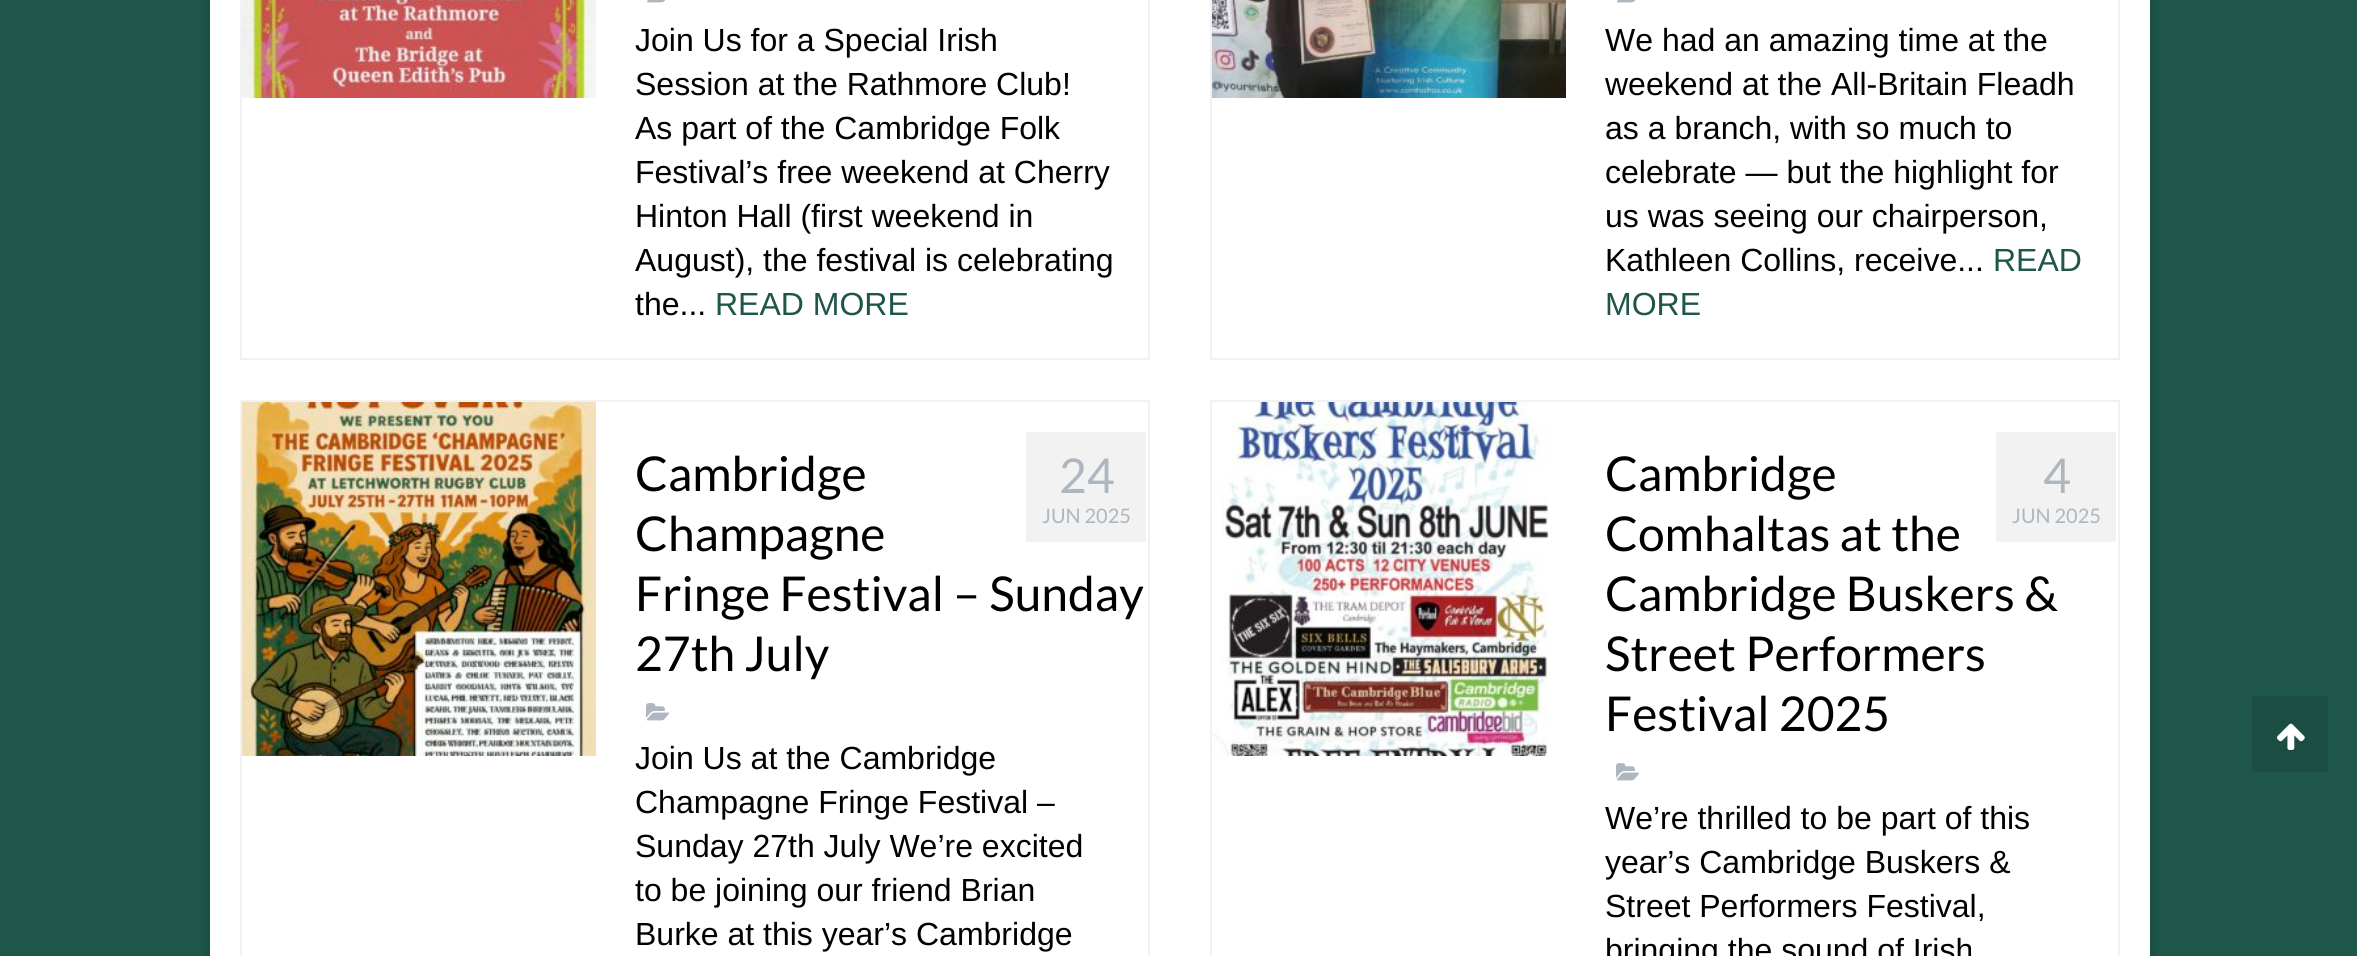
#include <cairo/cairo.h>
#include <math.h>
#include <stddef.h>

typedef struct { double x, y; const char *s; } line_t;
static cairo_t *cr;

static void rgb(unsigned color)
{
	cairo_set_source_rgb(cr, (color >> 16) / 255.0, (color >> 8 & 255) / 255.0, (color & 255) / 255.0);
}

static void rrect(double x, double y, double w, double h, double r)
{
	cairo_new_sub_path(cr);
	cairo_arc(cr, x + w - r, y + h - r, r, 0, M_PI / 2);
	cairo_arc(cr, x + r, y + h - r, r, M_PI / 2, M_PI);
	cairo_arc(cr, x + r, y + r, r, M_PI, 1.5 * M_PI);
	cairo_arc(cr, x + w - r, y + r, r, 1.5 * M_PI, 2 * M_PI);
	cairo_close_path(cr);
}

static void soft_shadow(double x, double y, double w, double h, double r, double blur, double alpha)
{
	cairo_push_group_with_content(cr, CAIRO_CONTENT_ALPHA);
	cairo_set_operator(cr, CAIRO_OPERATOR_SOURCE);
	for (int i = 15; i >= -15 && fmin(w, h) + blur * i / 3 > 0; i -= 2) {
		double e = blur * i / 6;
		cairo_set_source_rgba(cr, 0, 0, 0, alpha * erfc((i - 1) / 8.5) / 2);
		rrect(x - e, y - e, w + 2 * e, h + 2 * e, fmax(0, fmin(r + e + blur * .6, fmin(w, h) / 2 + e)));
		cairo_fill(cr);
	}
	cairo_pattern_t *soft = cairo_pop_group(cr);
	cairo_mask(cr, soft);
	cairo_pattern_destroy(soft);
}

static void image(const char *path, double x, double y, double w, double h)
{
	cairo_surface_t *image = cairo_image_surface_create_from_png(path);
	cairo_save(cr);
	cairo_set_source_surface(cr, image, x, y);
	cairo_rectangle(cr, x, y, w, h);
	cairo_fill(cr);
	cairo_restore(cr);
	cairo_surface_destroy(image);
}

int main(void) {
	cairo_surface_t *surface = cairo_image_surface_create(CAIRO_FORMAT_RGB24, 2357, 956);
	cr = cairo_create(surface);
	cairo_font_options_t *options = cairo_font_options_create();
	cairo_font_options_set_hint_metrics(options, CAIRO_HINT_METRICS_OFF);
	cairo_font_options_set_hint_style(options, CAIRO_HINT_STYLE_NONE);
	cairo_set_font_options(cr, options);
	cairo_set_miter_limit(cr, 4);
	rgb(0x1e564a);
	cairo_paint(cr);
	rgb(0x000000);
	soft_shadow(208, -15, 1944, 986, 0, 5, 0.16);
	rgb(0xffffff);
	cairo_rectangle(cr, 210, 0, 1940, 956);
	cairo_fill(cr);
	cairo_rectangle(cr, 241, -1, 908, 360);
	rgb(0xf2f2f2);
	cairo_stroke(cr);
	image("img/1.png", 242, 0, 354, 98);
	image("img/2.png", 647, 0, 19, 3);
	cairo_rectangle(cr, 1211, -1, 908, 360);
	cairo_stroke(cr);
	image("img/3.png", 1212, 0, 354, 98);
	image("img/2.png", 1617, 0, 19, 3);
	cairo_rectangle(cr, 241, 401, 908, 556);
	cairo_stroke(cr);
	image("img/4.png", 242, 402, 354, 354);
	image("img/5.png", 646, 703, 23, 18);
	cairo_rectangle(cr, 1026, 432, 120, 110);
	cairo_fill(cr);
	cairo_rectangle(cr, 1211, 401, 908, 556);
	cairo_stroke(cr);
	image("img/6.png", 1212, 402, 338, 354);
	image("img/5.png", 1616, 763, 23, 18);
	cairo_rectangle(cr, 1996, 432, 120, 110);
	cairo_fill(cr);
	rgb(0x1b4d43);
	cairo_rectangle(cr, 2252, 696, 76, 76);
	cairo_fill(cr);
	image("img/7.png", 2277, 723, 28, 27);
	cairo_select_font_face(cr, "Liberation Sans", CAIRO_FONT_SLANT_NORMAL, CAIRO_FONT_WEIGHT_NORMAL);
	cairo_set_font_size(cr, 32);
	rgb(0x000000);
	{
		static const line_t items[] = {
			{635, 51, "Join Us for a Special Irish"},
			{635, 95, "Session at the Rathmore Club!"},
			{635, 139, "As part of the Cambridge Folk"},
			{635, 183, "Festival’s free weekend at Cherry"},
			{635, 227, "Hinton Hall (first weekend in"},
			{635, 271, "August), the festival is celebrating"},
			{635, 315, "the..."},
		};
		for (size_t i = 0; i < sizeof items / sizeof *items; i++) {
			cairo_move_to(cr, items[i].x, items[i].y);
			cairo_show_text(cr, items[i].s);
		}
	}
	rgb(0x1e564a);
	cairo_move_to(cr, 715, 315);
	cairo_show_text(cr, "READ MORE");
	rgb(0x000000);
	{
		static const line_t items[] = {
			{1605, 51, "We had an amazing time at the"},
			{1605, 95, "weekend at the All-Britain Fleadh"},
			{1605, 139, "as a branch, with so much to"},
			{1605, 183, "celebrate — but the highlight for"},
			{1605, 227, "us was seeing our chairperson,"},
			{1605, 271, "Kathleen Collins, receive..."},
		};
		for (size_t i = 0; i < sizeof items / sizeof *items; i++) {
			cairo_move_to(cr, items[i].x, items[i].y);
			cairo_show_text(cr, items[i].s);
		}
	}
	rgb(0x1e564a);
	cairo_move_to(cr, 1993, 271);
	cairo_show_text(cr, "READ");
	cairo_move_to(cr, 1605, 315);
	cairo_show_text(cr, "MORE");
	cairo_select_font_face(cr, "Lato", CAIRO_FONT_SLANT_NORMAL, CAIRO_FONT_WEIGHT_NORMAL);
	cairo_set_font_size(cr, 48);
	rgb(0x000000);
	{
		static const line_t items[] = {
			{635, 491, "Cambridge"},
			{635, 551, "Champagne"},
			{635, 611, "Fringe Festival – Sunday"},
			{635, 671, "27th July"},
		};
		for (size_t i = 0; i < sizeof items / sizeof *items; i++) {
			cairo_move_to(cr, items[i].x, items[i].y);
			cairo_show_text(cr, items[i].s);
		}
	}
	rgb(0xaeb7bf);
	cairo_move_to(cr, 1059, 493);
	cairo_show_text(cr, "24");
	cairo_set_font_size(cr, 20);
	cairo_move_to(cr, 1042, 523);
	cairo_show_text(cr, "JUN 2025");
	cairo_select_font_face(cr, "Liberation Sans", CAIRO_FONT_SLANT_NORMAL, CAIRO_FONT_WEIGHT_NORMAL);
	cairo_set_font_size(cr, 32);
	rgb(0x000000);
	{
		static const line_t items[] = {
			{635, 769, "Join Us at the Cambridge"},
			{635, 813, "Champagne Fringe Festival –"},
			{635, 857, "Sunday 27th July We’re excited"},
			{635, 901, "to be joining our friend Brian"},
			{635, 945, "Burke at this year’s Cambridge"},
		};
		for (size_t i = 0; i < sizeof items / sizeof *items; i++) {
			cairo_move_to(cr, items[i].x, items[i].y);
			cairo_show_text(cr, items[i].s);
		}
	}
	cairo_select_font_face(cr, "Lato", CAIRO_FONT_SLANT_NORMAL, CAIRO_FONT_WEIGHT_NORMAL);
	cairo_set_font_size(cr, 48);
	{
		static const line_t items[] = {
			{1605, 491, "Cambridge"},
			{1605, 551, "Comhaltas at the"},
			{1605, 611, "Cambridge Buskers &"},
			{1605, 671, "Street Performers"},
			{1605, 731, "Festival 2025"},
		};
		for (size_t i = 0; i < sizeof items / sizeof *items; i++) {
			cairo_move_to(cr, items[i].x, items[i].y);
			cairo_show_text(cr, items[i].s);
		}
	}
	rgb(0xaeb7bf);
	cairo_move_to(cr, 2043, 493);
	cairo_show_text(cr, "4");
	cairo_set_font_size(cr, 20);
	cairo_move_to(cr, 2012, 523);
	cairo_show_text(cr, "JUN 2025");
	cairo_select_font_face(cr, "Liberation Sans", CAIRO_FONT_SLANT_NORMAL, CAIRO_FONT_WEIGHT_NORMAL);
	cairo_set_font_size(cr, 32);
	rgb(0x000000);
	{
		static const line_t items[] = {
			{1605, 829, "We’re thrilled to be part of this"},
			{1605, 873, "year’s Cambridge Buskers &"},
			{1605, 917, "Street Performers Festival,"},
			{1605, 961, "bringing the sound of Irish"},
		};
		for (size_t i = 0; i < sizeof items / sizeof *items; i++) {
			cairo_move_to(cr, items[i].x, items[i].y);
			cairo_show_text(cr, items[i].s);
		}
	}
	cairo_surface_write_to_png(surface, "page.png");
	cairo_font_options_destroy(options);
	cairo_destroy(cr);
	cairo_surface_destroy(surface);
	return 0;
}
